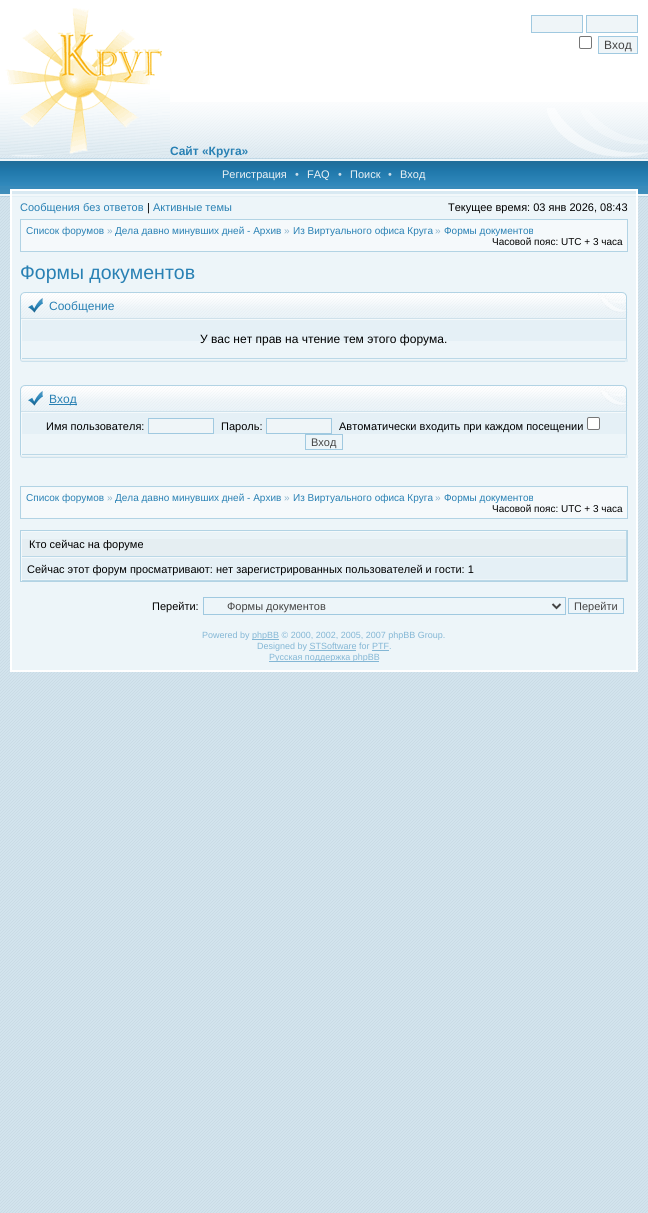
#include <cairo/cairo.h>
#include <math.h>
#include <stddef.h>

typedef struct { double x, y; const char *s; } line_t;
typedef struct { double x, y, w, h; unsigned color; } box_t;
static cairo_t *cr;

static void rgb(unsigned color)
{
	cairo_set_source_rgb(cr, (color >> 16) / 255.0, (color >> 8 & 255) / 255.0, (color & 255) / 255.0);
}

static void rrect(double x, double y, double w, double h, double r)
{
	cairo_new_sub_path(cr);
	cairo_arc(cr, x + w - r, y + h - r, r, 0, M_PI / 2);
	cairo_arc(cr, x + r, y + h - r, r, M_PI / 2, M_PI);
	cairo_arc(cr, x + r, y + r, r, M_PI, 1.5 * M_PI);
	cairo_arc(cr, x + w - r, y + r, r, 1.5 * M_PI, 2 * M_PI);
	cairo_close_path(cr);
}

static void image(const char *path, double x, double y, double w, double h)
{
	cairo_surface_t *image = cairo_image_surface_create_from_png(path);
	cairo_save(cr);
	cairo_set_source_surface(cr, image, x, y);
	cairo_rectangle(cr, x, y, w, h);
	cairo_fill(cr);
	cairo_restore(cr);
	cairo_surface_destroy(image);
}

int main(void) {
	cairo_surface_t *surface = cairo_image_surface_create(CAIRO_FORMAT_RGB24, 648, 1213);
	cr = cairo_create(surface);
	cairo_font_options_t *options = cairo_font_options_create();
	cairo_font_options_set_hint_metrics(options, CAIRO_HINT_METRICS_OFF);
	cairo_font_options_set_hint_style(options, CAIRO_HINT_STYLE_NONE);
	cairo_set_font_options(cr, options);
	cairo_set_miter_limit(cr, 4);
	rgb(0xffffff);
	cairo_paint(cr);
	image("img/1.png", 0, 197, 648, 1016);
	image("img/2.png", 0, 102, 648, 56);
	image("img/3.png", 10, 155, 35, 2);
	image("img/4.png", 547, 108, 101, 49);
	image("img/5.png", 0, 8, 170, 147);
	rgb(0xeff5f8);
	cairo_rectangle(cr, 531.5, 15.5, 51, 17);
	cairo_fill_preserve(cr);
	rgb(0xa0c9e0);
	cairo_set_line_width(cr, 1);
	cairo_stroke(cr);
	rgb(0xeff5f8);
	cairo_rectangle(cr, 586.5, 15.5, 51, 17);
	cairo_fill_preserve(cr);
	rgb(0xa0c9e0);
	cairo_stroke(cr);
	rrect(579.5, 36.5, 12, 12, 1.5);
	rgb(0x767676);
	cairo_stroke(cr);
	rgb(0xeff5f8);
	cairo_rectangle(cr, 598.5, 36.5, 39, 17);
	cairo_fill_preserve(cr);
	rgb(0xa0c9e0);
	cairo_stroke(cr);
	rgb(0x388bbb);
	cairo_rectangle(cr, 0, 186, 648, 3);
	cairo_fill(cr);
	image("img/6.png", 0, 158, 648, 28);
	image("img/7.png", 0, 189, 648, 8);
	cairo_rectangle(cr, 11, 190, 626, 481);
	rgb(0xffffff);
	cairo_set_line_width(cr, 2);
	cairo_stroke(cr);
	rgb(0xedf5f9);
	cairo_rectangle(cr, 12, 197, 624, 473);
	cairo_fill(cr);
	image("img/8.png", 12, 191, 624, 6);
	cairo_rectangle(cr, 20.5, 219.5, 607, 32);
	rgb(0xb2d3e4);
	cairo_set_line_width(cr, 1);
	cairo_stroke(cr);
	{
		static const box_t items[] = {
			{22, 221, 605, 30, 0xf5f9fb},
			{21, 220, 606, 1, 0xf4f9fb},
			{21, 220, 1, 31, 0xf4f9fb},
		};
		for (size_t i = 0; i < sizeof items / sizeof *items; i++) {
			rgb(items[i].color);
			cairo_rectangle(cr, items[i].x, items[i].y, items[i].w, items[i].h);
			cairo_fill(cr);
		}
	}
	image("img/9.png", 22, 360, 603, 2);
	image("img/10.png", 21, 292, 607, 27);
	image("img/11.png", 20, 292, 23, 27);
	image("img/12.png", 598, 292, 30, 27);
	{
		static const box_t items[] = {
			{20, 319, 1, 40, 0xb2d3e4},
			{22, 320, 604, 21, 0xe5f0f6},
			{21, 319, 606, 1, 0xf4f9fb},
			{626, 319, 1, 40, 0xbbd8e7},
			{21, 358, 606, 1, 0xbbd8e7},
			{21, 319, 1, 40, 0xf4f9fb},
		};
		for (size_t i = 0; i < sizeof items / sizeof *items; i++) {
			rgb(items[i].color);
			cairo_rectangle(cr, items[i].x, items[i].y, items[i].w, items[i].h);
			cairo_fill(cr);
		}
	}
	image("img/13.png", 20, 359, 2, 3);
	rgb(0xdfedf4);
	cairo_rectangle(cr, 625, 359, 3, 3);
	cairo_fill(cr);
	image("img/9.png", 22, 456, 603, 2);
	image("img/10.png", 21, 385, 607, 27);
	image("img/11.png", 20, 385, 23, 27);
	image("img/12.png", 598, 385, 30, 27);
	{
		static const box_t items[] = {
			{49, 404, 28, 1, 0x2981b4},
			{20, 412, 1, 43, 0xb2d3e4},
			{22, 413, 604, 21, 0xe5f0f6},
			{21, 412, 606, 1, 0xf4f9fb},
			{626, 412, 1, 43, 0xbbd8e7},
			{21, 454, 606, 1, 0xbbd8e7},
			{21, 412, 1, 43, 0xf4f9fb},
		};
		for (size_t i = 0; i < sizeof items / sizeof *items; i++) {
			rgb(items[i].color);
			cairo_rectangle(cr, items[i].x, items[i].y, items[i].w, items[i].h);
			cairo_fill(cr);
		}
	}
	rgb(0xeff5f8);
	cairo_rectangle(cr, 148.5, 418.5, 65, 15);
	cairo_fill_preserve(cr);
	rgb(0xa0c9e0);
	cairo_stroke(cr);
	rgb(0xeff5f8);
	cairo_rectangle(cr, 266.5, 418.5, 65, 15);
	cairo_fill_preserve(cr);
	rgb(0xa0c9e0);
	cairo_stroke(cr);
	rgb(0xffffff);
	rrect(587.5, 417.5, 12, 12, 1.5);
	cairo_fill_preserve(cr);
	rgb(0x767676);
	cairo_stroke(cr);
	cairo_rectangle(cr, 305.5, 434.5, 37, 15);
	rgb(0xa0c9e0);
	cairo_stroke(cr);
	image("img/13.png", 20, 455, 2, 3);
	rgb(0xdfedf4);
	cairo_rectangle(cr, 625, 455, 3, 3);
	cairo_fill(cr);
	cairo_rectangle(cr, 20.5, 486.5, 607, 32);
	rgb(0xb2d3e4);
	cairo_stroke(cr);
	{
		static const box_t items[] = {
			{22, 488, 605, 30, 0xf5f9fb},
			{21, 487, 606, 1, 0xf4f9fb},
			{21, 487, 1, 31, 0xf4f9fb},
		};
		for (size_t i = 0; i < sizeof items / sizeof *items; i++) {
			rgb(items[i].color);
			cairo_rectangle(cr, items[i].x, items[i].y, items[i].w, items[i].h);
			cairo_fill(cr);
		}
	}
	cairo_rectangle(cr, 20.5, 530.5, 607, 51);
	rgb(0xb2d3e4);
	cairo_stroke(cr);
	{
		static const box_t items[] = {
			{22, 539, 604, 17, 0xe5eef2},
			{21, 532, 606, 7, 0xeaf3f7},
			{21, 531, 606, 1, 0xf4f9fb},
			{626, 531, 1, 26, 0xbbd8e7},
			{21, 556, 606, 1, 0xbbd8e7},
			{21, 531, 1, 26, 0xf4f9fb},
			{22, 558, 604, 21, 0xe5f0f6},
			{21, 557, 606, 1, 0xf4f9fb},
			{626, 557, 1, 24, 0xbbd8e7},
			{21, 580, 606, 1, 0xbbd8e7},
			{21, 557, 1, 24, 0xf4f9fb},
		};
		for (size_t i = 0; i < sizeof items / sizeof *items; i++) {
			rgb(items[i].color);
			cairo_rectangle(cr, items[i].x, items[i].y, items[i].w, items[i].h);
			cairo_fill(cr);
		}
	}
	cairo_rectangle(cr, 203.5, 597.5, 362, 17);
	rgb(0xa0c9e0);
	cairo_stroke(cr);
	cairo_new_path(cr);
	cairo_move_to(cr, 552.5, 604);
	cairo_line_to(cr, 556.5, 608);
	cairo_line_to(cr, 560.5, 604);
	rgb(0x444444);
	cairo_set_line_width(cr, 2);
	cairo_stroke(cr);
	cairo_rectangle(cr, 568.5, 598.5, 55, 15);
	rgb(0xa0c9e0);
	cairo_set_line_width(cr, 1);
	cairo_stroke(cr);
	{
		static const box_t items[] = {
			{252, 639, 27, 1, 0x84b7d5},
			{309, 650, 47, 1, 0x84b7d5},
			{372, 650, 17, 1, 0x84b7d5},
			{269, 661, 110, 1, 0x84b7d5},
		};
		for (size_t i = 0; i < sizeof items / sizeof *items; i++) {
			rgb(items[i].color);
			cairo_rectangle(cr, items[i].x, items[i].y, items[i].w, items[i].h);
			cairo_fill(cr);
		}
	}
	cairo_select_font_face(cr, "Liberation Sans", CAIRO_FONT_SLANT_NORMAL, CAIRO_FONT_WEIGHT_NORMAL);
	cairo_set_font_size(cr, 12);
	rgb(0x444444);
	cairo_move_to(cr, 604, 49);
	cairo_show_text(cr, "Вход");
	cairo_select_font_face(cr, "Liberation Sans", CAIRO_FONT_SLANT_NORMAL, CAIRO_FONT_WEIGHT_BOLD);
	rgb(0x2981b4);
	cairo_move_to(cr, 170, 155);
	cairo_show_text(cr, "Сайт «Круга»");
	cairo_select_font_face(cr, "Liberation Sans", CAIRO_FONT_SLANT_NORMAL, CAIRO_FONT_WEIGHT_NORMAL);
	cairo_set_font_size(cr, 11);
	rgb(0xecf2f5);
	cairo_move_to(cr, 222, 178);
	cairo_show_text(cr, "Регистрация");
	rgb(0xcadeea);
	cairo_move_to(cr, 295, 178);
	cairo_show_text(cr, "•");
	rgb(0xecf2f5);
	cairo_move_to(cr, 307, 178);
	cairo_show_text(cr, "FAQ");
	rgb(0xcadeea);
	cairo_move_to(cr, 338, 178);
	cairo_show_text(cr, "•");
	rgb(0xecf2f5);
	cairo_move_to(cr, 350, 178);
	cairo_show_text(cr, "Поиск");
	rgb(0xcadeea);
	cairo_move_to(cr, 388, 178);
	cairo_show_text(cr, "•");
	rgb(0xecf2f5);
	cairo_move_to(cr, 400, 178);
	cairo_show_text(cr, "Вход");
	rgb(0x2981b4);
	cairo_move_to(cr, 20, 211);
	cairo_show_text(cr, "Сообщения без ответов");
	rgb(0x000000);
	cairo_move_to(cr, 147, 211);
	cairo_show_text(cr, "|");
	rgb(0x2981b4);
	cairo_move_to(cr, 153, 211);
	cairo_show_text(cr, "Активные темы");
	rgb(0x000000);
	cairo_move_to(cr, 448, 211);
	cairo_show_text(cr, "Текущее время: 03 янв 2026, 08:43");
	cairo_set_font_size(cr, 10);
	rgb(0x2981b4);
	cairo_move_to(cr, 26, 234);
	cairo_show_text(cr, "Список форумов");
	rgb(0x8db5cd);
	cairo_move_to(cr, 107, 234);
	cairo_show_text(cr, "»");
	rgb(0x2981b4);
	cairo_move_to(cr, 115, 234);
	cairo_show_text(cr, "Дела давно минувших дней - Архив");
	rgb(0x8db5cd);
	cairo_move_to(cr, 284, 234);
	cairo_show_text(cr, "»");
	rgb(0x2981b4);
	cairo_move_to(cr, 293, 234);
	cairo_show_text(cr, "Из Виртуального офиса Круга");
	rgb(0x8db5cd);
	cairo_move_to(cr, 435, 234);
	cairo_show_text(cr, "»");
	rgb(0x2981b4);
	cairo_move_to(cr, 444, 234);
	cairo_show_text(cr, "Формы документов");
	rgb(0x000000);
	cairo_move_to(cr, 492, 245);
	cairo_show_text(cr, "Часовой пояс: UTC + 3 часа");
	cairo_set_font_size(cr, 19.5);
	rgb(0x2981b4);
	cairo_move_to(cr, 20, 279);
	cairo_show_text(cr, "Формы документов");
	cairo_set_font_size(cr, 12);
	cairo_move_to(cr, 49, 310);
	cairo_show_text(cr, "Сообщение");
	rgb(0x000000);
	cairo_move_to(cr, 200, 343);
	cairo_show_text(cr, "У вас нет прав на чтение тем этого форума.");
	rgb(0x2981b4);
	cairo_move_to(cr, 49, 403);
	cairo_show_text(cr, "Вход");
	cairo_set_font_size(cr, 11);
	rgb(0x000000);
	{
		static const line_t items[] = {
			{46, 430, "Имя пользователя:"},
			{221, 430, "Пароль:"},
			{339, 430, "Автоматически входить при каждом посещении"},
		};
		for (size_t i = 0; i < sizeof items / sizeof *items; i++) {
			cairo_move_to(cr, items[i].x, items[i].y);
			cairo_show_text(cr, items[i].s);
		}
	}
	rgb(0x444444);
	cairo_move_to(cr, 311, 446);
	cairo_show_text(cr, "Вход");
	cairo_set_font_size(cr, 10);
	rgb(0x2981b4);
	cairo_move_to(cr, 26, 501);
	cairo_show_text(cr, "Список форумов");
	rgb(0x8db5cd);
	cairo_move_to(cr, 107, 501);
	cairo_show_text(cr, "»");
	rgb(0x2981b4);
	cairo_move_to(cr, 115, 501);
	cairo_show_text(cr, "Дела давно минувших дней - Архив");
	rgb(0x8db5cd);
	cairo_move_to(cr, 284, 501);
	cairo_show_text(cr, "»");
	rgb(0x2981b4);
	cairo_move_to(cr, 293, 501);
	cairo_show_text(cr, "Из Виртуального офиса Круга");
	rgb(0x8db5cd);
	cairo_move_to(cr, 435, 501);
	cairo_show_text(cr, "»");
	rgb(0x2981b4);
	cairo_move_to(cr, 444, 501);
	cairo_show_text(cr, "Формы документов");
	rgb(0x000000);
	cairo_move_to(cr, 492, 512);
	cairo_show_text(cr, "Часовой пояс: UTC + 3 часа");
	cairo_set_font_size(cr, 11);
	{
		static const line_t items[] = {
			{29, 548, "Кто сейчас на форуме"},
			{27, 573, "Сейчас этот форум просматривают: нет зарегистрированных пользователей и гости: 1"},
			{152, 610, "Перейти:"},
		};
		for (size_t i = 0; i < sizeof items / sizeof *items; i++) {
			cairo_move_to(cr, items[i].x, items[i].y);
			cairo_show_text(cr, items[i].s);
		}
	}
	rgb(0x444444);
	cairo_move_to(cr, 227, 610);
	cairo_show_text(cr, "Формы документов");
	cairo_move_to(cr, 574, 610);
	cairo_show_text(cr, "Перейти");
	cairo_set_font_size(cr, 9);
	rgb(0x84b7d5);
	{
		static const line_t items[] = {
			{202, 638, "Powered by"},
			{252, 638, "phpBB © 2000, 2002, 2005, 2007 phpBB Group."},
			{257, 649, "Designed by STSoftware for PTF."},
			{269, 660, "Русская поддержка phpBB"},
		};
		for (size_t i = 0; i < sizeof items / sizeof *items; i++) {
			cairo_move_to(cr, items[i].x, items[i].y);
			cairo_show_text(cr, items[i].s);
		}
	}
	cairo_surface_write_to_png(surface, "page.png");
	cairo_font_options_destroy(options);
	cairo_destroy(cr);
	cairo_surface_destroy(surface);
	return 0;
}
